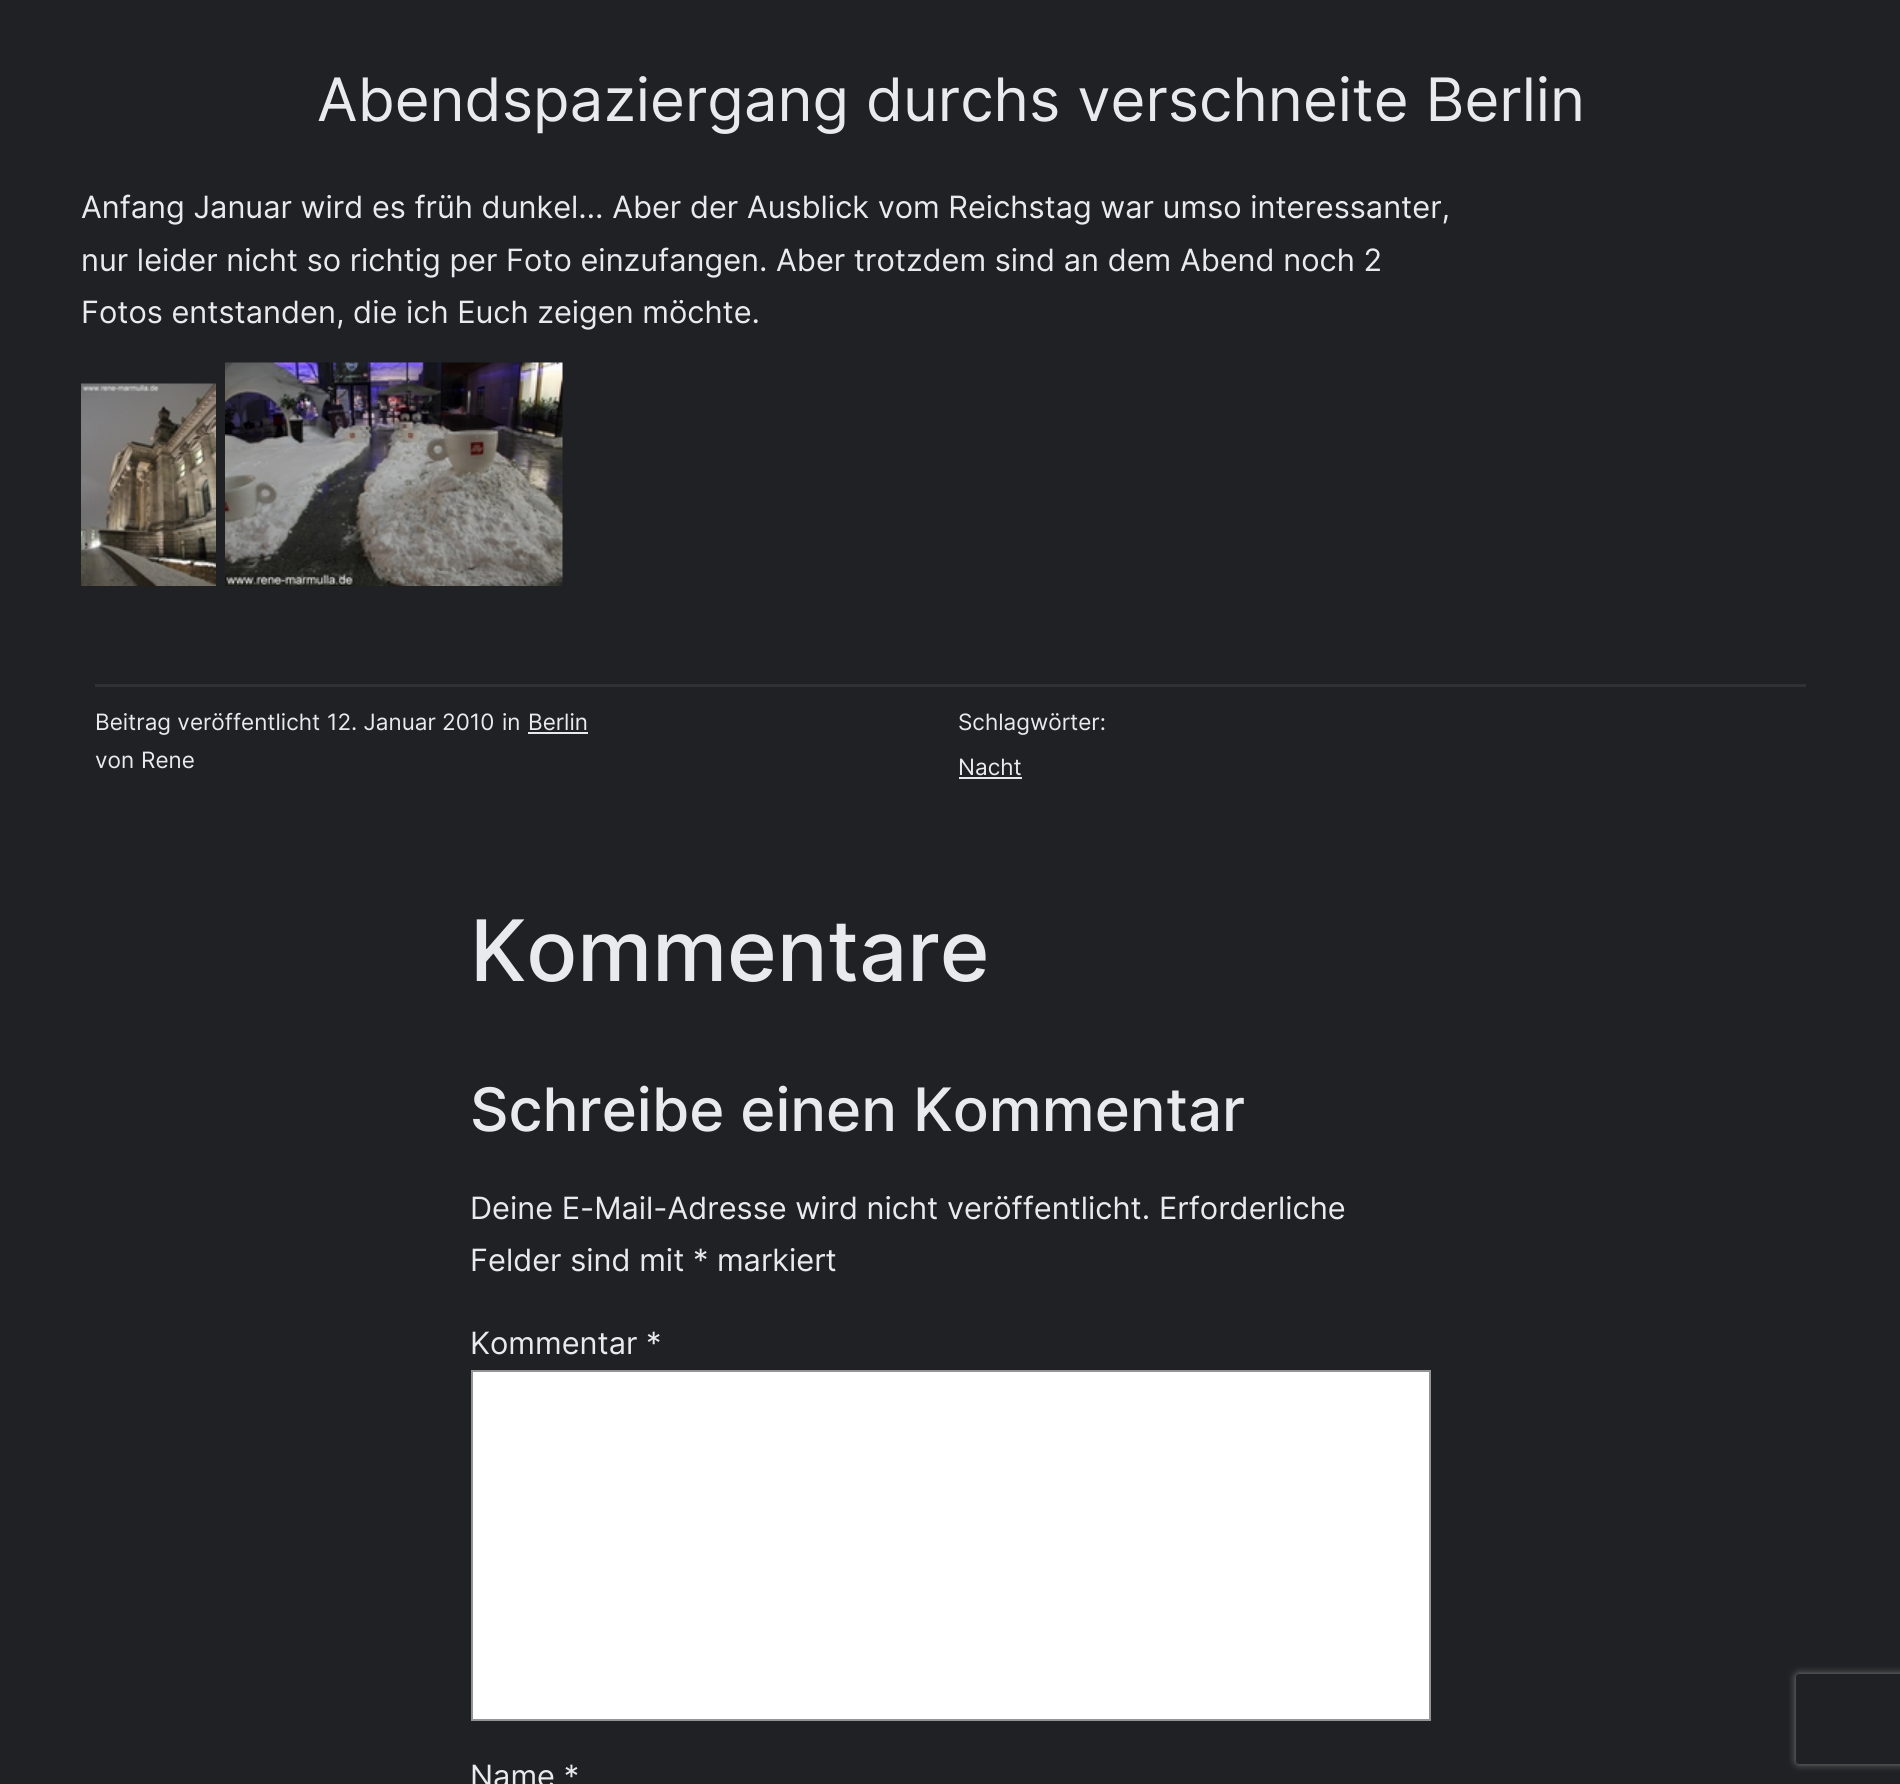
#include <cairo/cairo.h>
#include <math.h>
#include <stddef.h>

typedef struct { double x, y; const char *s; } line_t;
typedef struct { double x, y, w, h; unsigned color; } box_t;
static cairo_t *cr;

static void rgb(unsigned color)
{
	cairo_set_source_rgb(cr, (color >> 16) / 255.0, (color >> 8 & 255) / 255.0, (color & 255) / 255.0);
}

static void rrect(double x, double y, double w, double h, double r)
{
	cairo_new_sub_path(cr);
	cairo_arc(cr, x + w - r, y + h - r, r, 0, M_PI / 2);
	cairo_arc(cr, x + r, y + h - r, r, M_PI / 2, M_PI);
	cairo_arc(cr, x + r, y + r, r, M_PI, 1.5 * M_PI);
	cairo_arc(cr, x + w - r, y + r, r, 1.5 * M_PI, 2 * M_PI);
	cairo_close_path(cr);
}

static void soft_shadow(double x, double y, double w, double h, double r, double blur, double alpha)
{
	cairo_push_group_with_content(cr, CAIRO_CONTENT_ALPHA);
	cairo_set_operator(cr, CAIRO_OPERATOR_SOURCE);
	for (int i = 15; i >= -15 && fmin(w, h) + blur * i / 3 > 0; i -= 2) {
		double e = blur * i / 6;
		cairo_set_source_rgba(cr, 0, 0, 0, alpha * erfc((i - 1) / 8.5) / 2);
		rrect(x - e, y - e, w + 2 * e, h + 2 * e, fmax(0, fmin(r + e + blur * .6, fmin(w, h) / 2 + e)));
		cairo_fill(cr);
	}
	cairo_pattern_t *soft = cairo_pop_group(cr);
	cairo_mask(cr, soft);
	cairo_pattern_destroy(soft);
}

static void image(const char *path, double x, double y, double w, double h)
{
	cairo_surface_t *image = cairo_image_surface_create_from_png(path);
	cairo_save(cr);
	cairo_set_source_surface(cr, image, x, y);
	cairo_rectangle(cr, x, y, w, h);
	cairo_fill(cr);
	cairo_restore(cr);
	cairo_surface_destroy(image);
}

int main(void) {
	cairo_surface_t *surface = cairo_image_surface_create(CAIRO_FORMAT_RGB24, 1900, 1784);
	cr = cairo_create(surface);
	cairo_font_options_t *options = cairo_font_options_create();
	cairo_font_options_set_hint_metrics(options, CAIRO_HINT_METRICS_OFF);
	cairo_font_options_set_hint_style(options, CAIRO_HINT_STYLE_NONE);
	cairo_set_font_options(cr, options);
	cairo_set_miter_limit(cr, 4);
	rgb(0x202124);
	cairo_paint(cr);
	image("img/1.png", 81, 383, 135, 203);
	image("img/2.png", 225, 362, 338, 224);
	{
		static const box_t items[] = {
			{95, 684, 1711, 3, 0x303134},
			{528, 732, 60, 2, 0xe8eaed},
			{959, 777, 63, 2, 0xe8eaed},
		};
		for (size_t i = 0; i < sizeof items / sizeof *items; i++) {
			rgb(items[i].color);
			cairo_rectangle(cr, items[i].x, items[i].y, items[i].w, items[i].h);
			cairo_fill(cr);
		}
	}
	rgb(0xffffff);
	cairo_rectangle(cr, 472, 1371, 958, 349);
	cairo_fill_preserve(cr);
	rgb(0x949494);
	cairo_stroke(cr);
	cairo_save(cr);
	cairo_set_fill_rule(cr, CAIRO_FILL_RULE_EVEN_ODD);
	cairo_new_path(cr);
	cairo_move_to(cr, 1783, 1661);
	cairo_line_to(cr, 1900, 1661);
	cairo_line_to(cr, 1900, 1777);
	cairo_line_to(cr, 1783, 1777);
	cairo_close_path(cr);
	cairo_move_to(cr, 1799, 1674);
	cairo_line_to(cr, 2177, 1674);
	cairo_curve_to(cr, 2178.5, 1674, 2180, 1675.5, 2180, 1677);
	cairo_line_to(cr, 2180, 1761);
	cairo_curve_to(cr, 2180, 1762.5, 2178.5, 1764, 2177, 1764);
	cairo_line_to(cr, 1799, 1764);
	cairo_curve_to(cr, 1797.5, 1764, 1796, 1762.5, 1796, 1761);
	cairo_line_to(cr, 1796, 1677);
	cairo_curve_to(cr, 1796, 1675.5, 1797.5, 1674, 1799, 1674);
	cairo_close_path(cr);
	cairo_clip(cr);
	rgb(0x808080);
	soft_shadow(1796, 1674, 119, 90, 3, 4, 1);
	cairo_restore(cr);
	cairo_select_font_face(cr, "Inter", CAIRO_FONT_SLANT_NORMAL, CAIRO_FONT_WEIGHT_NORMAL);
	cairo_set_font_size(cr, 59.9);
	rgb(0xe8eaed);
	cairo_move_to(cr, 317, 121);
	cairo_show_text(cr, "Abendspaziergang durchs verschneite Berlin");
	cairo_set_font_size(cr, 30.7);
	{
		static const line_t items[] = {
			{81, 218, "Anfang Januar wird es früh dunkel… Aber der Ausblick vom Reichstag war umso interessanter,"},
			{81, 271, "nur leider nicht so richtig per Foto einzufangen. Aber trotzdem sind an dem Abend noch 2"},
			{81, 323, "Fotos entstanden, die ich Euch zeigen möchte."},
		};
		for (size_t i = 0; i < sizeof items / sizeof *items; i++) {
			cairo_move_to(cr, items[i].x, items[i].y);
			cairo_show_text(cr, items[i].s);
		}
	}
	cairo_set_font_size(cr, 22.5);
	{
		static const line_t items[] = {
			{95, 730, "Beitrag veröffentlicht"},
			{327, 730, "12. Januar 2010"},
			{502, 730, "in"},
			{528, 730, "Berlin"},
			{95, 768, "von"},
			{141, 768, "Rene"},
			{958, 730, "Schlagwörter:"},
			{958, 775, "Nacht"},
		};
		for (size_t i = 0; i < sizeof items / sizeof *items; i++) {
			cairo_move_to(cr, items[i].x, items[i].y);
			cairo_show_text(cr, items[i].s);
		}
	}
	cairo_select_font_face(cr, "Inter Medium", CAIRO_FONT_SLANT_NORMAL, CAIRO_FONT_WEIGHT_NORMAL);
	cairo_set_font_size(cr, 84.75);
	cairo_move_to(cr, 470, 981);
	cairo_show_text(cr, "Kommentare");
	cairo_set_font_size(cr, 59.9);
	cairo_move_to(cr, 470, 1131);
	cairo_show_text(cr, "Schreibe einen Kommentar");
	cairo_select_font_face(cr, "Inter", CAIRO_FONT_SLANT_NORMAL, CAIRO_FONT_WEIGHT_NORMAL);
	cairo_set_font_size(cr, 30.7);
	{
		static const line_t items[] = {
			{470, 1219, "Deine E-Mail-Adresse wird nicht veröffentlicht."},
			{1159, 1219, "Erforderliche"},
			{470, 1271, "Felder sind mit * markiert"},
			{470, 1354, "Kommentar *"},
			{470, 1787, "Name *"},
		};
		for (size_t i = 0; i < sizeof items / sizeof *items; i++) {
			cairo_move_to(cr, items[i].x, items[i].y);
			cairo_show_text(cr, items[i].s);
		}
	}
	cairo_surface_write_to_png(surface, "page.png");
	cairo_font_options_destroy(options);
	cairo_destroy(cr);
	cairo_surface_destroy(surface);
	return 0;
}
